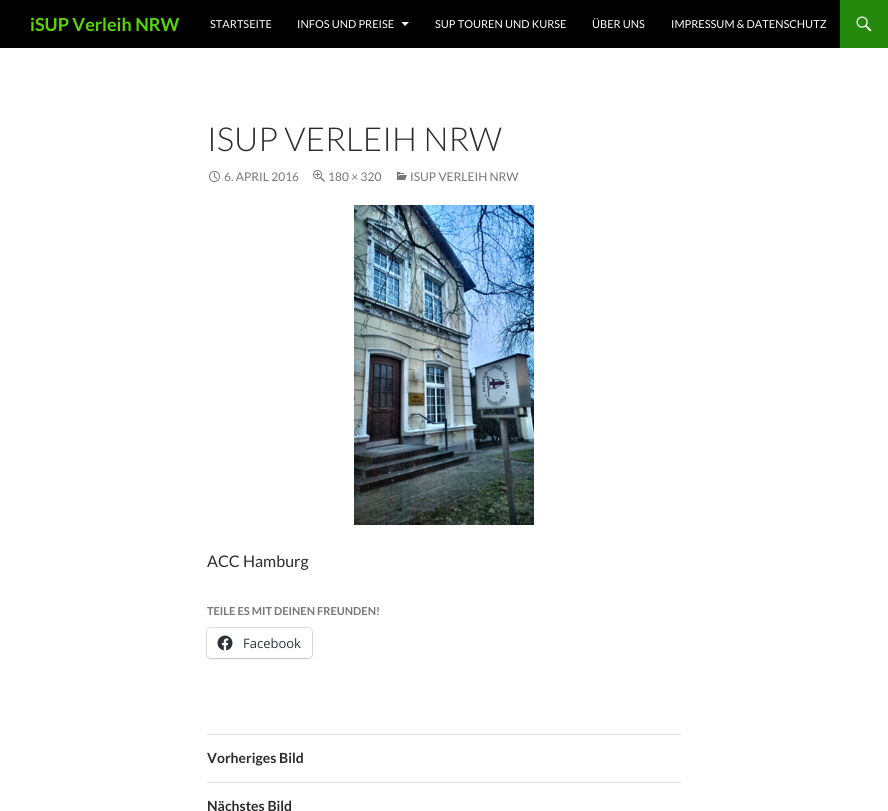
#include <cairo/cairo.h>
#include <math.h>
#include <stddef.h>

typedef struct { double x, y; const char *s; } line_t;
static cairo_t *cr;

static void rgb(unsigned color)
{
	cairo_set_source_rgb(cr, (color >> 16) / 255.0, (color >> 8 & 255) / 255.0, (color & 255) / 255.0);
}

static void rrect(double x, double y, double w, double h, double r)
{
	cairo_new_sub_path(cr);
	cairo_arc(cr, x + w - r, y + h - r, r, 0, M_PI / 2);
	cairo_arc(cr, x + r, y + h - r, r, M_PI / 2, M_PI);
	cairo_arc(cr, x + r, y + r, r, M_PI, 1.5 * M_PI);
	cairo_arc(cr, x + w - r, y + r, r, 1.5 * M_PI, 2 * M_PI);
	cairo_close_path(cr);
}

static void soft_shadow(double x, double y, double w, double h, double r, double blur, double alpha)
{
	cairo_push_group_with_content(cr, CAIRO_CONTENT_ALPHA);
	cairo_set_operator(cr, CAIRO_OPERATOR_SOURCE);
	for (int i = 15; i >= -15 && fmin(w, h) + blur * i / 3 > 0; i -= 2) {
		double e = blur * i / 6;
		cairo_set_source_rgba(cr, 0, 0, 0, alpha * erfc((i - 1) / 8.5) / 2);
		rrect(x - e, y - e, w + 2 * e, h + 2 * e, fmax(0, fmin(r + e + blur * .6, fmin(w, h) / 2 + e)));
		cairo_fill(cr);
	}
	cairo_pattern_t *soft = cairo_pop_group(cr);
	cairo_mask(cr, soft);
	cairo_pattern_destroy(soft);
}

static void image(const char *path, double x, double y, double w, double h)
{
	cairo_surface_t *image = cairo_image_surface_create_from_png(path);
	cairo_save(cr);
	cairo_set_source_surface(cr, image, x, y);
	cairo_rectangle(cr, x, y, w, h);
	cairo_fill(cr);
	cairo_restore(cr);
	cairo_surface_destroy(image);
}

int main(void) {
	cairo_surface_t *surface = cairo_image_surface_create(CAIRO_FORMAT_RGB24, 888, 811);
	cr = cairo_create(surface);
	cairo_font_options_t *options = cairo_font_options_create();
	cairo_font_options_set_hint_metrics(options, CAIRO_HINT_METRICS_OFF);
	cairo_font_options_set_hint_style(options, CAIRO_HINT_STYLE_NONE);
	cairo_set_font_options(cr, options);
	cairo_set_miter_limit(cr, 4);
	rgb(0xffffff);
	cairo_paint(cr);
	rgb(0x000000);
	cairo_rectangle(cr, 0, 0, 840, 48);
	cairo_fill(cr);
	rgb(0xffffff);
	cairo_new_path(cr);
	cairo_move_to(cr, 401.5, 22);
	cairo_line_to(cr, 409, 22);
	cairo_line_to(cr, 405, 26);
	cairo_close_path(cr);
	cairo_fill(cr);
	rgb(0x24890d);
	cairo_rectangle(cr, 840, 0, 48, 48);
	cairo_fill(cr);
	image("img/1.png", 856, 16, 16, 16);
	image("img/2.png", 209, 171, 11, 11);
	image("img/3.png", 313, 170, 12, 12);
	image("img/4.png", 397, 172, 10, 8);
	image("img/5.png", 354, 205, 180, 320);
	rrect(206.5, 627.5, 106, 31, 4.5);
	rgb(0xe0e0e0);
	cairo_set_line_width(cr, 1);
	cairo_stroke(cr);
	rgb(0x000000);
	soft_shadow(207, 629, 105, 30, 4, 1, 0.12);
	rgb(0xffffff);
	rrect(207, 628, 105, 30, 4);
	cairo_fill(cr);
	image("img/6.png", 217, 635, 16, 16);
	rgb(0xe6e6e6);
	cairo_rectangle(cr, 207, 734, 474, 1);
	cairo_fill(cr);
	cairo_rectangle(cr, 207, 782, 474, 1);
	cairo_fill(cr);
	cairo_select_font_face(cr, "Lato", CAIRO_FONT_SLANT_NORMAL, CAIRO_FONT_WEIGHT_BOLD);
	cairo_set_font_size(cr, 18);
	rgb(0x59d600);
	cairo_move_to(cr, 30, 31);
	cairo_show_text(cr, "iSUP Verleih NRW");
	cairo_select_font_face(cr, "Lato", CAIRO_FONT_SLANT_NORMAL, CAIRO_FONT_WEIGHT_NORMAL);
	cairo_set_font_size(cr, 11);
	rgb(0xffffff);
	{
		static const line_t items[] = {
			{210, 28, "STARTSEITE"},
			{297, 28, "INFOS UND PREISE"},
			{435, 28, "SUP TOUREN UND KURSE"},
			{592, 28, "ÜBER UNS"},
			{671, 28, "IMPRESSUM & DATENSCHUTZ"},
		};
		for (size_t i = 0; i < sizeof items / sizeof *items; i++) {
			cairo_move_to(cr, items[i].x, items[i].y);
			cairo_show_text(cr, items[i].s);
		}
	}
	cairo_select_font_face(cr, "Lato Light", CAIRO_FONT_SLANT_NORMAL, CAIRO_FONT_WEIGHT_NORMAL);
	cairo_set_font_size(cr, 33);
	rgb(0x2b2b2b);
	cairo_move_to(cr, 207, 151);
	cairo_show_text(cr, "ISUP VERLEIH NRW");
	cairo_select_font_face(cr, "Lato", CAIRO_FONT_SLANT_NORMAL, CAIRO_FONT_WEIGHT_NORMAL);
	cairo_set_font_size(cr, 12);
	rgb(0x767676);
	{
		static const line_t items[] = {
			{224, 181, "6. APRIL 2016"},
			{328, 181, "180 × 320"},
			{410, 181, "ISUP VERLEIH NRW"},
		};
		for (size_t i = 0; i < sizeof items / sizeof *items; i++) {
			cairo_move_to(cr, items[i].x, items[i].y);
			cairo_show_text(cr, items[i].s);
		}
	}
	cairo_set_font_size(cr, 16);
	rgb(0x2b2b2b);
	cairo_move_to(cr, 207, 567);
	cairo_show_text(cr, "ACC Hamburg");
	cairo_select_font_face(cr, "Lato", CAIRO_FONT_SLANT_NORMAL, CAIRO_FONT_WEIGHT_BOLD);
	cairo_set_font_size(cr, 11);
	rgb(0x767676);
	cairo_move_to(cr, 207, 615);
	cairo_show_text(cr, "TEILE ES MIT DEINEN FREUNDEN!");
	cairo_select_font_face(cr, "Open Sans", CAIRO_FONT_SLANT_NORMAL, CAIRO_FONT_WEIGHT_NORMAL);
	cairo_set_font_size(cr, 13);
	rgb(0x2c3338);
	cairo_move_to(cr, 243, 648);
	cairo_show_text(cr, "Facebook");
	cairo_select_font_face(cr, "Lato", CAIRO_FONT_SLANT_NORMAL, CAIRO_FONT_WEIGHT_BOLD);
	cairo_set_font_size(cr, 14);
	rgb(0x2b2b2b);
	cairo_move_to(cr, 207, 763);
	cairo_show_text(cr, "Vorheriges Bild");
	cairo_move_to(cr, 207, 811);
	cairo_show_text(cr, "Nächstes Bild");
	cairo_surface_write_to_png(surface, "page.png");
	cairo_font_options_destroy(options);
	cairo_destroy(cr);
	cairo_surface_destroy(surface);
	return 0;
}
